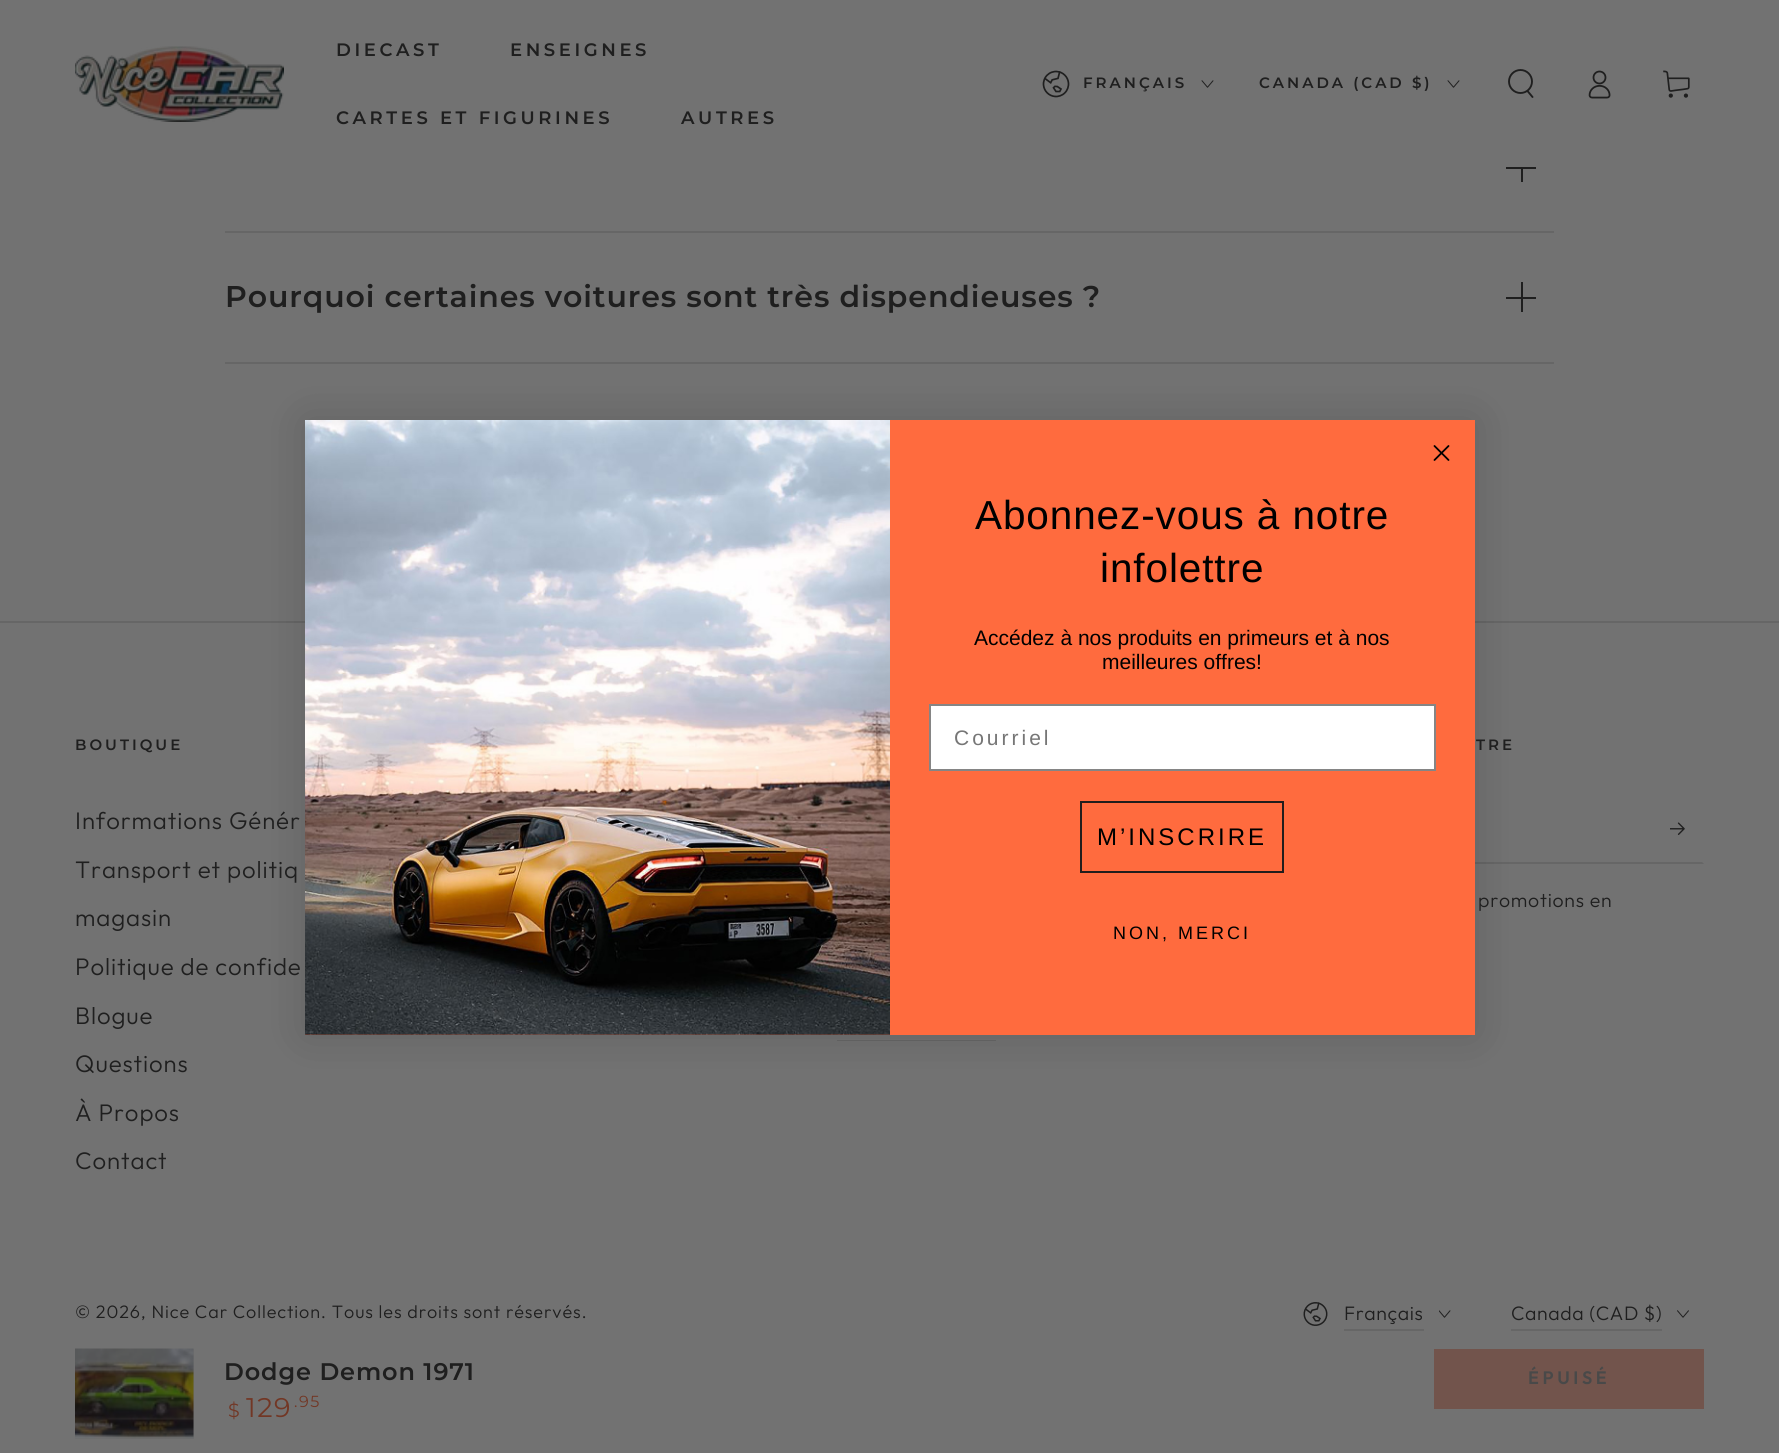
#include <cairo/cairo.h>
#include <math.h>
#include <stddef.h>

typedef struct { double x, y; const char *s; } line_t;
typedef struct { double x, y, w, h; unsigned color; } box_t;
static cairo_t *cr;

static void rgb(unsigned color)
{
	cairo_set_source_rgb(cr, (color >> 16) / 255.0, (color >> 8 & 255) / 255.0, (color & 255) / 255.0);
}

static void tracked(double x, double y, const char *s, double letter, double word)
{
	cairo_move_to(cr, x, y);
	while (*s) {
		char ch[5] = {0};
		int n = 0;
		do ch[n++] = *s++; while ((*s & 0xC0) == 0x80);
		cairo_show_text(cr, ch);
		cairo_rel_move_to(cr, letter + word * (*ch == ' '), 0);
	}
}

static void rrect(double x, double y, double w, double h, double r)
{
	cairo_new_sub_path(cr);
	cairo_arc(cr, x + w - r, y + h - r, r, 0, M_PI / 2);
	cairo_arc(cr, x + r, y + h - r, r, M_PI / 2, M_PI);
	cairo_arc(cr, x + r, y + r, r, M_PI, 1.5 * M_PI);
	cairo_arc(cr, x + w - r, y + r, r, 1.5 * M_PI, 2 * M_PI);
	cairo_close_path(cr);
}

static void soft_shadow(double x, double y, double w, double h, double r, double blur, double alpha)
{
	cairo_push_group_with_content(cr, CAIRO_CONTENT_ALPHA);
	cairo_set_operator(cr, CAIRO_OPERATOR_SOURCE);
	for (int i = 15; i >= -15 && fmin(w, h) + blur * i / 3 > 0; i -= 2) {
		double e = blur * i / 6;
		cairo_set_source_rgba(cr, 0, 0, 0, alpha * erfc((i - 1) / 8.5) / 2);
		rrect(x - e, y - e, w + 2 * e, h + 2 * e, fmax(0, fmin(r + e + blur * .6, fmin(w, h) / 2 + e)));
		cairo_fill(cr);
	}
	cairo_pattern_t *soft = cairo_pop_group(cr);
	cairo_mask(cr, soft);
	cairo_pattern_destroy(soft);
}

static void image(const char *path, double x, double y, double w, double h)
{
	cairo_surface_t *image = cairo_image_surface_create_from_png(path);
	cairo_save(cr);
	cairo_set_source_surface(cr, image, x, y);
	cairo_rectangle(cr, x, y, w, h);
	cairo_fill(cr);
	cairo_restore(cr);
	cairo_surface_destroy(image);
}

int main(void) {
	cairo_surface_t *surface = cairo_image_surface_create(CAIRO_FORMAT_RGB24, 1779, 1453);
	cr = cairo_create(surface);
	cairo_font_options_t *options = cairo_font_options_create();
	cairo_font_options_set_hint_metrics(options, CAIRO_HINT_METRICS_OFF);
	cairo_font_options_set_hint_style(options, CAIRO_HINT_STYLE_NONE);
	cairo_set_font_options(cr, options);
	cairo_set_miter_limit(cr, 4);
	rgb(0x727272);
	cairo_paint(cr);
	image("img/1.png", 75, 46, 209, 76);
	image("img/2.png", 1042, 70, 28, 28);
	image("img/3.png", 1201, 80, 13, 8);
	image("img/3.png", 1447, 80, 13, 8);
	cairo_arc(cr, 1520.5, 81.5, 11.5, 0, 2 * M_PI);
	rgb(0x1f1f1f);
	cairo_set_line_width(cr, 1.9);
	cairo_stroke(cr);
	cairo_new_path(cr);
	cairo_move_to(cr, 1527.5, 91);
	cairo_line_to(cr, 1532.5, 97);
	cairo_set_line_cap(cr, CAIRO_LINE_CAP_ROUND);
	cairo_stroke(cr);
	image("img/4.png", 1588, 70, 23, 29);
	image("img/5.png", 1663, 70, 27, 28);
	{
		static const box_t items[] = {
			{225, 231, 1329, 2, 0x666666},
			{1506, 167, 30, 2, 0x1f1f1f},
			{1521, 167, 2, 15, 0x1f1f1f},
			{225, 362, 1329, 2, 0x666666},
			{1506, 297, 30, 2, 0x1f1f1f},
			{1521, 282, 2, 30, 0x1f1f1f},
			{75, 1349, 119, 90, 0x6d6d6d},
		};
		for (size_t i = 0; i < sizeof items / sizeof *items; i++) {
			rgb(items[i].color);
			cairo_rectangle(cr, items[i].x, items[i].y, items[i].w, items[i].h);
			cairo_fill(cr);
		}
	}
	image("img/6.png", 75, 1348, 119, 91);
	{
		static const box_t items[] = {
			{1434, 1349, 270, 60, 0x72544c},
			{0, 621, 1779, 2, 0x666666},
			{837, 1040, 159, 1, 0x666666},
		};
		for (size_t i = 0; i < sizeof items / sizeof *items; i++) {
			rgb(items[i].color);
			cairo_rectangle(cr, items[i].x, items[i].y, items[i].w, items[i].h);
			cairo_fill(cr);
		}
	}
	image("img/7.png", 1670, 822, 15, 13);
	cairo_new_path(cr);
	cairo_move_to(cr, 1704, 864);
	cairo_line_to(cr, 1224, 864);
	cairo_line_to(cr, 1226, 862);
	cairo_line_to(cr, 1702, 862);
	cairo_close_path(cr);
	cairo_fill(cr);
	image("img/8.png", 1303, 1302, 25, 24);
	cairo_rectangle(cr, 1344, 1329, 80, 2);
	cairo_fill(cr);
	image("img/9.png", 1439, 1310, 12, 8);
	cairo_rectangle(cr, 1511, 1329, 151, 2);
	cairo_fill(cr);
	image("img/10.png", 1677, 1310, 12, 8);
	rgb(0x000000);
	soft_shadow(305, 420, 1170, 615, 0, 22.5, 0.15);
	rgb(0xff6b3e);
	cairo_rectangle(cr, 305, 420, 1170, 615);
	cairo_fill(cr);
	cairo_new_path(cr);
	cairo_move_to(cr, 1434.5, 446);
	cairo_line_to(cr, 1448.5, 460);
	cairo_move_to(cr, 1434.5, 460);
	cairo_line_to(cr, 1448.5, 446);
	cairo_close_path(cr);
	rgb(0x000000);
	cairo_set_line_width(cr, 1.8);
	cairo_set_line_join(cr, CAIRO_LINE_JOIN_ROUND);
	cairo_stroke(cr);
	image("img/11.png", 305, 420, 585, 615);
	rgb(0xffffff);
	cairo_rectangle(cr, 930, 705, 505, 65);
	cairo_fill_preserve(cr);
	rgb(0x858585);
	cairo_set_line_width(cr, 2);
	cairo_set_line_cap(cr, CAIRO_LINE_CAP_BUTT);
	cairo_set_line_join(cr, CAIRO_LINE_JOIN_MITER);
	cairo_stroke(cr);
	cairo_rectangle(cr, 1081, 802, 202, 70);
	rgb(0x211d1c);
	cairo_stroke(cr);
	cairo_select_font_face(cr, "Montserrat SemiBold", CAIRO_FONT_SLANT_NORMAL, CAIRO_FONT_WEIGHT_NORMAL);
	cairo_set_font_size(cr, 18);
	rgb(0x1f1f1f);
	{
		static const line_t items[] = {
			{336, 56, "DIECAST"},
			{510, 56, "ENSEIGNES"},
			{336, 124, "CARTES ET FIGURINES"},
			{681, 124, "AUTRES"},
		};
		for (size_t i = 0; i < sizeof items / sizeof *items; i++) {
			tracked(items[i].x, items[i].y, items[i].s, 3.6, 0);
		}
	}
	cairo_set_font_size(cr, 15);
	tracked(1083, 88, "FRANÇAIS", 3, 0);
	tracked(1259, 88, "CANADA (CAD $)", 3, 0);
	cairo_set_font_size(cr, 30);
	tracked(225, 307, "Pourquoi certaines voitures sont très dispendieuses ?", 0.9, 0);
	cairo_set_font_size(cr, 24);
	tracked(224, 1380, "Dodge Demon 1971", 0.9, 0);
	cairo_select_font_face(cr, "Montserrat", CAIRO_FONT_SLANT_NORMAL, CAIRO_FONT_WEIGHT_NORMAL);
	cairo_set_font_size(cr, 19);
	rgb(0x723725);
	tracked(228, 1417, "$", 1.5, 0);
	cairo_set_font_size(cr, 27);
	tracked(246, 1417, "129", 1.5, 0);
	cairo_set_font_size(cr, 16);
	tracked(294, 1407, ".95", 1.5, 0);
	cairo_select_font_face(cr, "Outfit SemiBold", CAIRO_FONT_SLANT_NORMAL, CAIRO_FONT_WEIGHT_NORMAL);
	cairo_set_font_size(cr, 18);
	rgb(0x494949);
	tracked(1528, 1384, "ÉPUISÉ", 3.6, 0);
	cairo_select_font_face(cr, "Montserrat SemiBold", CAIRO_FONT_SLANT_NORMAL, CAIRO_FONT_WEIGHT_NORMAL);
	cairo_set_font_size(cr, 15);
	rgb(0x1f1f1f);
	tracked(75, 750, "BOUTIQUE", 3, 0);
	cairo_select_font_face(cr, "Outfit Light", CAIRO_FONT_SLANT_NORMAL, CAIRO_FONT_WEIGHT_NORMAL);
	cairo_set_font_size(cr, 24);
	{
		static const line_t items[] = {
			{75, 829, "Informations Génér"},
			{75, 878, "Transport et politiq"},
			{75, 926, "magasin"},
			{75, 975, "Politique de confide"},
			{75, 1024, "Blogue"},
			{75, 1072, "Questions"},
			{75, 1121, "À Propos"},
			{75, 1169, "Contact"},
		};
		for (size_t i = 0; i < sizeof items / sizeof *items; i++) {
			tracked(items[i].x, items[i].y, items[i].s, 0.9, 0);
		}
	}
	cairo_select_font_face(cr, "Montserrat SemiBold", CAIRO_FONT_SLANT_NORMAL, CAIRO_FONT_WEIGHT_NORMAL);
	cairo_set_font_size(cr, 15);
	tracked(1476, 750, "TRE", 3, 0);
	cairo_select_font_face(cr, "Outfit Light", CAIRO_FONT_SLANT_NORMAL, CAIRO_FONT_WEIGHT_NORMAL);
	cairo_set_font_size(cr, 19.5);
	tracked(1478, 907, "promotions en", 0.75, 0);
	cairo_set_font_size(cr, 18);
	tracked(75, 1318, "© 2026, Nice Car Collection. Tous les droits sont réservés.", 0.9, 0);
	cairo_set_font_size(cr, 19.5);
	tracked(1344, 1320, "Français", 0.6, 0);
	tracked(1511, 1320, "Canada (CAD $)", 0.6, 0);
	cairo_select_font_face(cr, "Liberation Sans", CAIRO_FONT_SLANT_NORMAL, CAIRO_FONT_WEIGHT_NORMAL);
	cairo_set_font_size(cr, 40.5);
	rgb(0x000000);
	tracked(975, 529, "Abonnez-vous à notre", 0.9, 0);
	tracked(1100, 582, "infolettre", 0.9, 0);
	cairo_set_font_size(cr, 21);
	cairo_move_to(cr, 974, 645);
	cairo_show_text(cr, "Accédez à nos produits en primeurs et à nos");
	cairo_move_to(cr, 1102, 669);
	cairo_show_text(cr, "meilleures offres!");
	rgb(0x767676);
	tracked(954, 745, "Courriel", 3, 0);
	cairo_set_font_size(cr, 24);
	rgb(0x000000);
	tracked(1097, 845, "M’INSCRIRE", 3, 0);
	cairo_set_font_size(cr, 18);
	tracked(1113, 939, "NON, MERCI", 3, 0);
	cairo_surface_write_to_png(surface, "page.png");
	cairo_font_options_destroy(options);
	cairo_destroy(cr);
	cairo_surface_destroy(surface);
	return 0;
}
